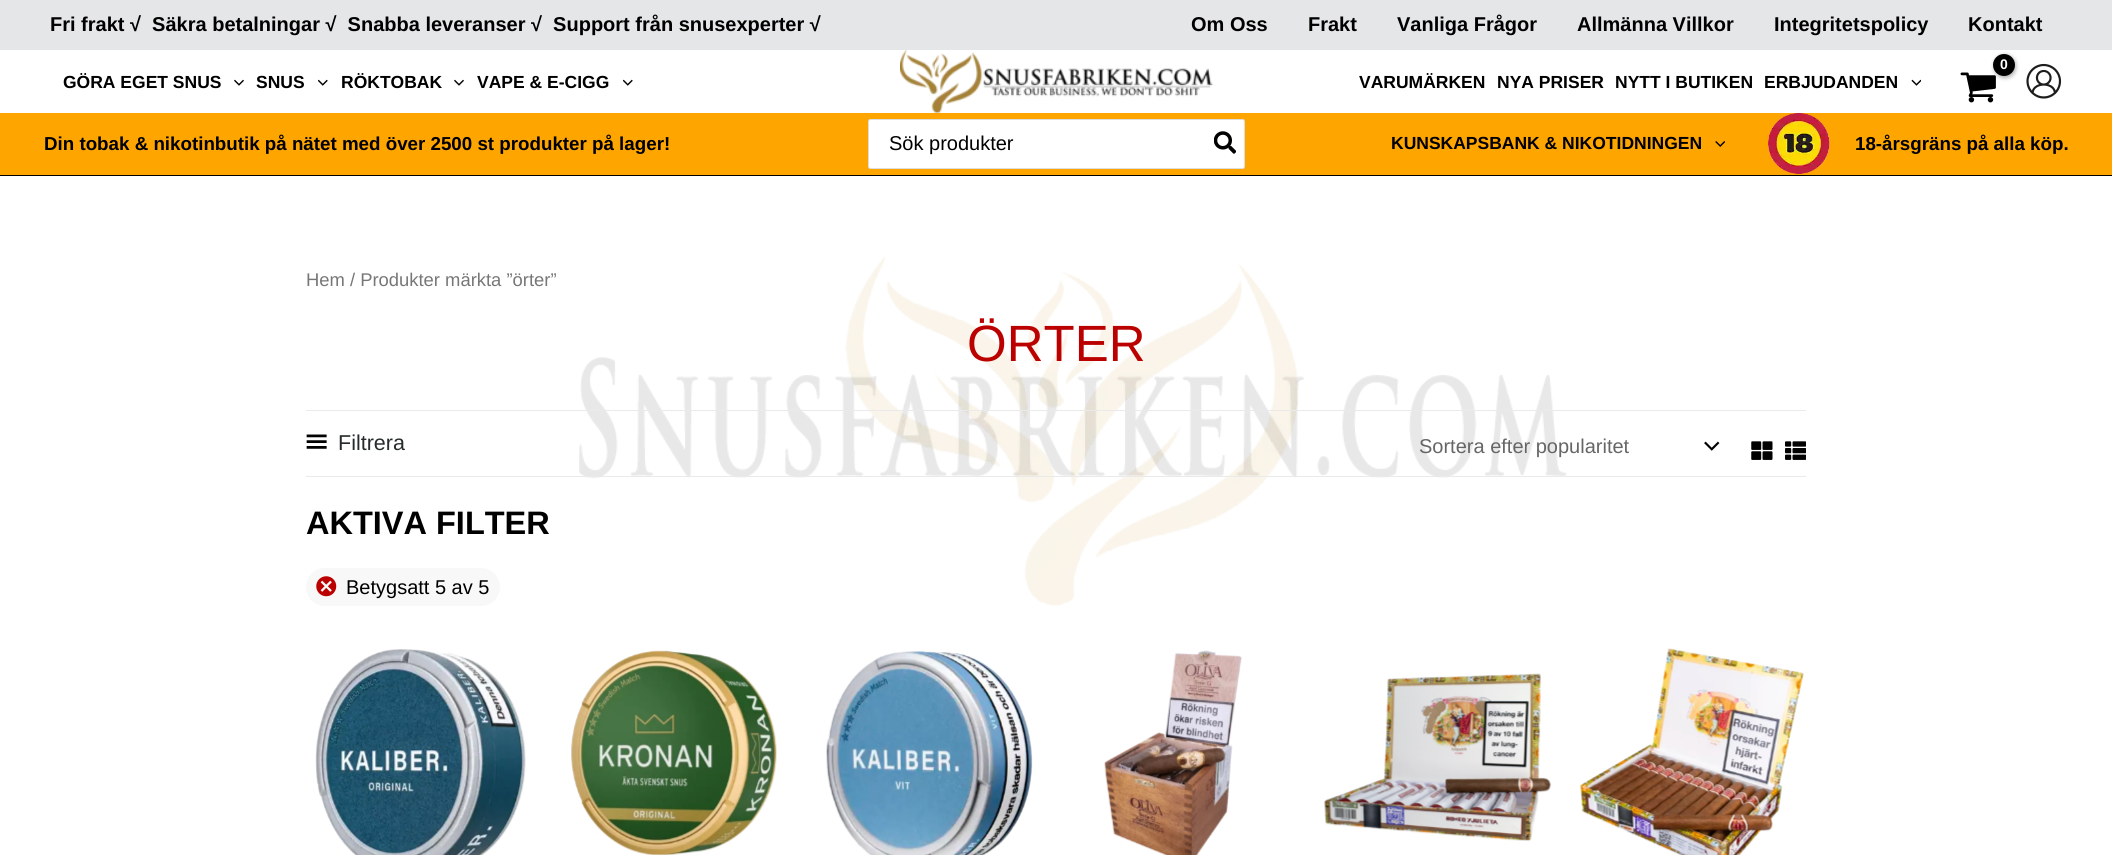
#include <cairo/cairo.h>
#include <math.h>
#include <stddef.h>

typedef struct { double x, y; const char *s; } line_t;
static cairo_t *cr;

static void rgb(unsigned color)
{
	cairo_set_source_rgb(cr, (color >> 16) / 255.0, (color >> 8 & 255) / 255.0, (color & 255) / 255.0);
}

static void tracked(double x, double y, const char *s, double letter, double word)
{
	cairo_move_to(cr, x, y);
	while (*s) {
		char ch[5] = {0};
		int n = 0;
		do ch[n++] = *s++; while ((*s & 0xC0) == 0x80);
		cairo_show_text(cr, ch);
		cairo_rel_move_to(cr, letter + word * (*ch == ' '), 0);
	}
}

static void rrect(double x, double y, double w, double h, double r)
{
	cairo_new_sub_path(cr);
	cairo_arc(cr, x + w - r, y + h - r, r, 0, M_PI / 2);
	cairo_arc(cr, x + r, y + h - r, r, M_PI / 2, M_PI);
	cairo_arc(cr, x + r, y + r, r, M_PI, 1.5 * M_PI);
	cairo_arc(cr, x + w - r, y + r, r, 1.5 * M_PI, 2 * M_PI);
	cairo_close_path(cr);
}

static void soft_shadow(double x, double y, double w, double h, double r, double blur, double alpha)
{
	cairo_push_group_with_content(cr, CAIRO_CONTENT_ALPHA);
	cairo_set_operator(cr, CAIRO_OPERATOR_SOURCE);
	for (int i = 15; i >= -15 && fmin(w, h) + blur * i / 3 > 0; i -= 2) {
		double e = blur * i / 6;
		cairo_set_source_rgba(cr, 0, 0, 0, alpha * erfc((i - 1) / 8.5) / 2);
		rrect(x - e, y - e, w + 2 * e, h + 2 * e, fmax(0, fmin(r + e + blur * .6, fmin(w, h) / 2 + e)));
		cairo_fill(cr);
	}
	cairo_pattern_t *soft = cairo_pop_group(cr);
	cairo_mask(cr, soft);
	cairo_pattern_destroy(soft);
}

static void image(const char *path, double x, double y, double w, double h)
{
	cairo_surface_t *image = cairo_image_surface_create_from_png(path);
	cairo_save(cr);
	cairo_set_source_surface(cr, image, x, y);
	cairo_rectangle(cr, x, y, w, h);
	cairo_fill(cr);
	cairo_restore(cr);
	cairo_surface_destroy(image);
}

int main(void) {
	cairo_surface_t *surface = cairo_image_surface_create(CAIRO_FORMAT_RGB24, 2112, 855);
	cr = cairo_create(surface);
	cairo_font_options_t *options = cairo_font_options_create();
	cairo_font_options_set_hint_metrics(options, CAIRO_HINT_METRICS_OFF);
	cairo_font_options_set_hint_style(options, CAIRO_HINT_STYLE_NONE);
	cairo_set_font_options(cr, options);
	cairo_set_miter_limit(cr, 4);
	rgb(0xffffff);
	cairo_paint(cr);
	rgb(0xe4e6e7);
	cairo_rectangle(cr, 0, 0, 2112, 50);
	cairo_fill(cr);
	image("img/1.png", 234, 79, 10, 7);
	image("img/2.png", 318, 79, 10, 7);
	image("img/1.png", 454, 79, 10, 7);
	image("img/2.png", 623, 79, 10, 7);
	image("img/3.png", 900, 50, 313, 63);
	image("img/4.png", 1911, 79, 10, 7);
	image("img/5.png", 1960, 72, 36, 31);
	rgb(0x000000);
	soft_shadow(1994, 55, 22, 23, 11, 2, 0.3);
	rgb(0x000000);
	cairo_arc(cr, 2004, 65, 11, 0, 2 * M_PI);
	cairo_fill(cr);
	image("img/6.png", 2026, 63, 36, 36);
	rgb(0xffa500);
	cairo_rectangle(cr, 0, 113, 2112, 62);
	cairo_fill(cr);
	rgb(0x000000);
	cairo_rectangle(cr, 0, 175, 2112, 1);
	cairo_fill(cr);
	rgb(0xffffff);
	rrect(868.5, 119.5, 376, 49, 2);
	cairo_fill_preserve(cr);
	rgb(0xdddddd);
	cairo_set_line_width(cr, 1);
	cairo_stroke(cr);
	image("img/7.png", 1214, 131, 22, 23);
	image("img/8.png", 1715, 141, 10, 6);
	image("img/9.png", 1768, 113, 62, 61);
	image("img/10.png", 579, 257, 988, 349);
	rgb(0xeaeaea);
	cairo_rectangle(cr, 306, 410, 1500, 1);
	cairo_fill(cr);
	cairo_rectangle(cr, 306, 476, 1500, 1);
	cairo_fill(cr);
	image("img/11.png", 306, 434, 21, 15);
	image("img/12.png", 1704, 441, 16, 10);
	image("img/13.png", 1751, 441, 22, 19);
	image("img/14.png", 1785, 441, 21, 19);
	rgb(0xf8f8f8);
	rrect(306, 568, 194, 38, 19);
	cairo_fill(cr);
	image("img/15.png", 316, 576, 21, 21);
	image("img/16.png", 315, 649, 211, 206);
	image("img/17.png", 571, 650, 206, 205);
	image("img/18.png", 826, 651, 207, 204);
	image("img/19.png", 1104, 650, 138, 205);
	image("img/20.png", 1324, 673, 228, 168);
	image("img/21.png", 1580, 648, 224, 207);
	cairo_select_font_face(cr, "Liberation Sans", CAIRO_FONT_SLANT_NORMAL, CAIRO_FONT_WEIGHT_BOLD);
	cairo_set_font_size(cr, 20);
	rgb(0x000000);
	{
		static const line_t items[] = {
			{50, 31, "Fri frakt √  Säkra betalningar √  Snabba leveranser √  Support från snusexperter √"},
			{1191, 31, "Om Oss"},
			{1308, 31, "Frakt"},
			{1397, 31, "Vanliga Frågor"},
			{1577, 31, "Allmänna Villkor"},
			{1774, 31, "Integritetspolicy"},
			{1968, 31, "Kontakt"},
		};
		for (size_t i = 0; i < sizeof items / sizeof *items; i++) {
			cairo_move_to(cr, items[i].x, items[i].y);
			cairo_show_text(cr, items[i].s);
		}
	}
	cairo_set_font_size(cr, 17.5);
	{
		static const line_t items[] = {
			{63, 88, "GÖRA EGET SNUS"},
			{256, 88, "SNUS"},
			{341, 88, "RÖKTOBAK"},
			{477, 88, "VAPE & E-CIGG"},
			{1359, 88, "VARUMÄRKEN"},
			{1497, 88, "NYA PRISER"},
			{1615, 88, "NYTT I BUTIKEN"},
			{1764, 88, "ERBJUDANDEN"},
		};
		for (size_t i = 0; i < sizeof items / sizeof *items; i++) {
			cairo_move_to(cr, items[i].x, items[i].y);
			cairo_show_text(cr, items[i].s);
		}
	}
	cairo_set_font_size(cr, 14);
	rgb(0xffffff);
	tracked(2000, 69, "0", -1, 0);
	cairo_set_font_size(cr, 18.75);
	rgb(0x000000);
	cairo_move_to(cr, 44, 150);
	cairo_show_text(cr, "Din tobak & nikotinbutik på nätet med över 2500 st produkter på lager!");
	cairo_select_font_face(cr, "Liberation Sans", CAIRO_FONT_SLANT_NORMAL, CAIRO_FONT_WEIGHT_NORMAL);
	cairo_set_font_size(cr, 20);
	cairo_move_to(cr, 889, 150);
	cairo_show_text(cr, "Sök produkter");
	cairo_select_font_face(cr, "Liberation Sans", CAIRO_FONT_SLANT_NORMAL, CAIRO_FONT_WEIGHT_BOLD);
	cairo_set_font_size(cr, 17.5);
	cairo_move_to(cr, 1391, 149);
	cairo_show_text(cr, "KUNSKAPSBANK & NIKOTIDNINGEN");
	cairo_set_font_size(cr, 18.75);
	cairo_move_to(cr, 1855, 150);
	cairo_show_text(cr, "18-årsgräns på alla köp.");
	cairo_select_font_face(cr, "Liberation Sans", CAIRO_FONT_SLANT_NORMAL, CAIRO_FONT_WEIGHT_NORMAL);
	cairo_set_font_size(cr, 18.4);
	rgb(0x777777);
	cairo_move_to(cr, 306, 286);
	cairo_show_text(cr, "Hem / Produkter märkta ”örter”");
	cairo_set_font_size(cr, 51);
	rgb(0xbb0000);
	cairo_move_to(cr, 967, 361);
	cairo_show_text(cr, "ÖRTER");
	cairo_set_font_size(cr, 21.5);
	rgb(0x262b2c);
	cairo_move_to(cr, 338, 450);
	cairo_show_text(cr, "Filtrera");
	cairo_set_font_size(cr, 20);
	rgb(0x666666);
	cairo_move_to(cr, 1419, 453);
	cairo_show_text(cr, "Sortera efter popularitet");
	cairo_select_font_face(cr, "Liberation Sans", CAIRO_FONT_SLANT_NORMAL, CAIRO_FONT_WEIGHT_BOLD);
	cairo_set_font_size(cr, 32.5);
	rgb(0x000000);
	cairo_move_to(cr, 306, 534);
	cairo_show_text(cr, "AKTIVA FILTER");
	cairo_select_font_face(cr, "Liberation Sans", CAIRO_FONT_SLANT_NORMAL, CAIRO_FONT_WEIGHT_NORMAL);
	cairo_set_font_size(cr, 20);
	cairo_move_to(cr, 346, 594);
	cairo_show_text(cr, "Betygsatt 5 av 5");
	cairo_surface_write_to_png(surface, "page.png");
	cairo_font_options_destroy(options);
	cairo_destroy(cr);
	cairo_surface_destroy(surface);
	return 0;
}
